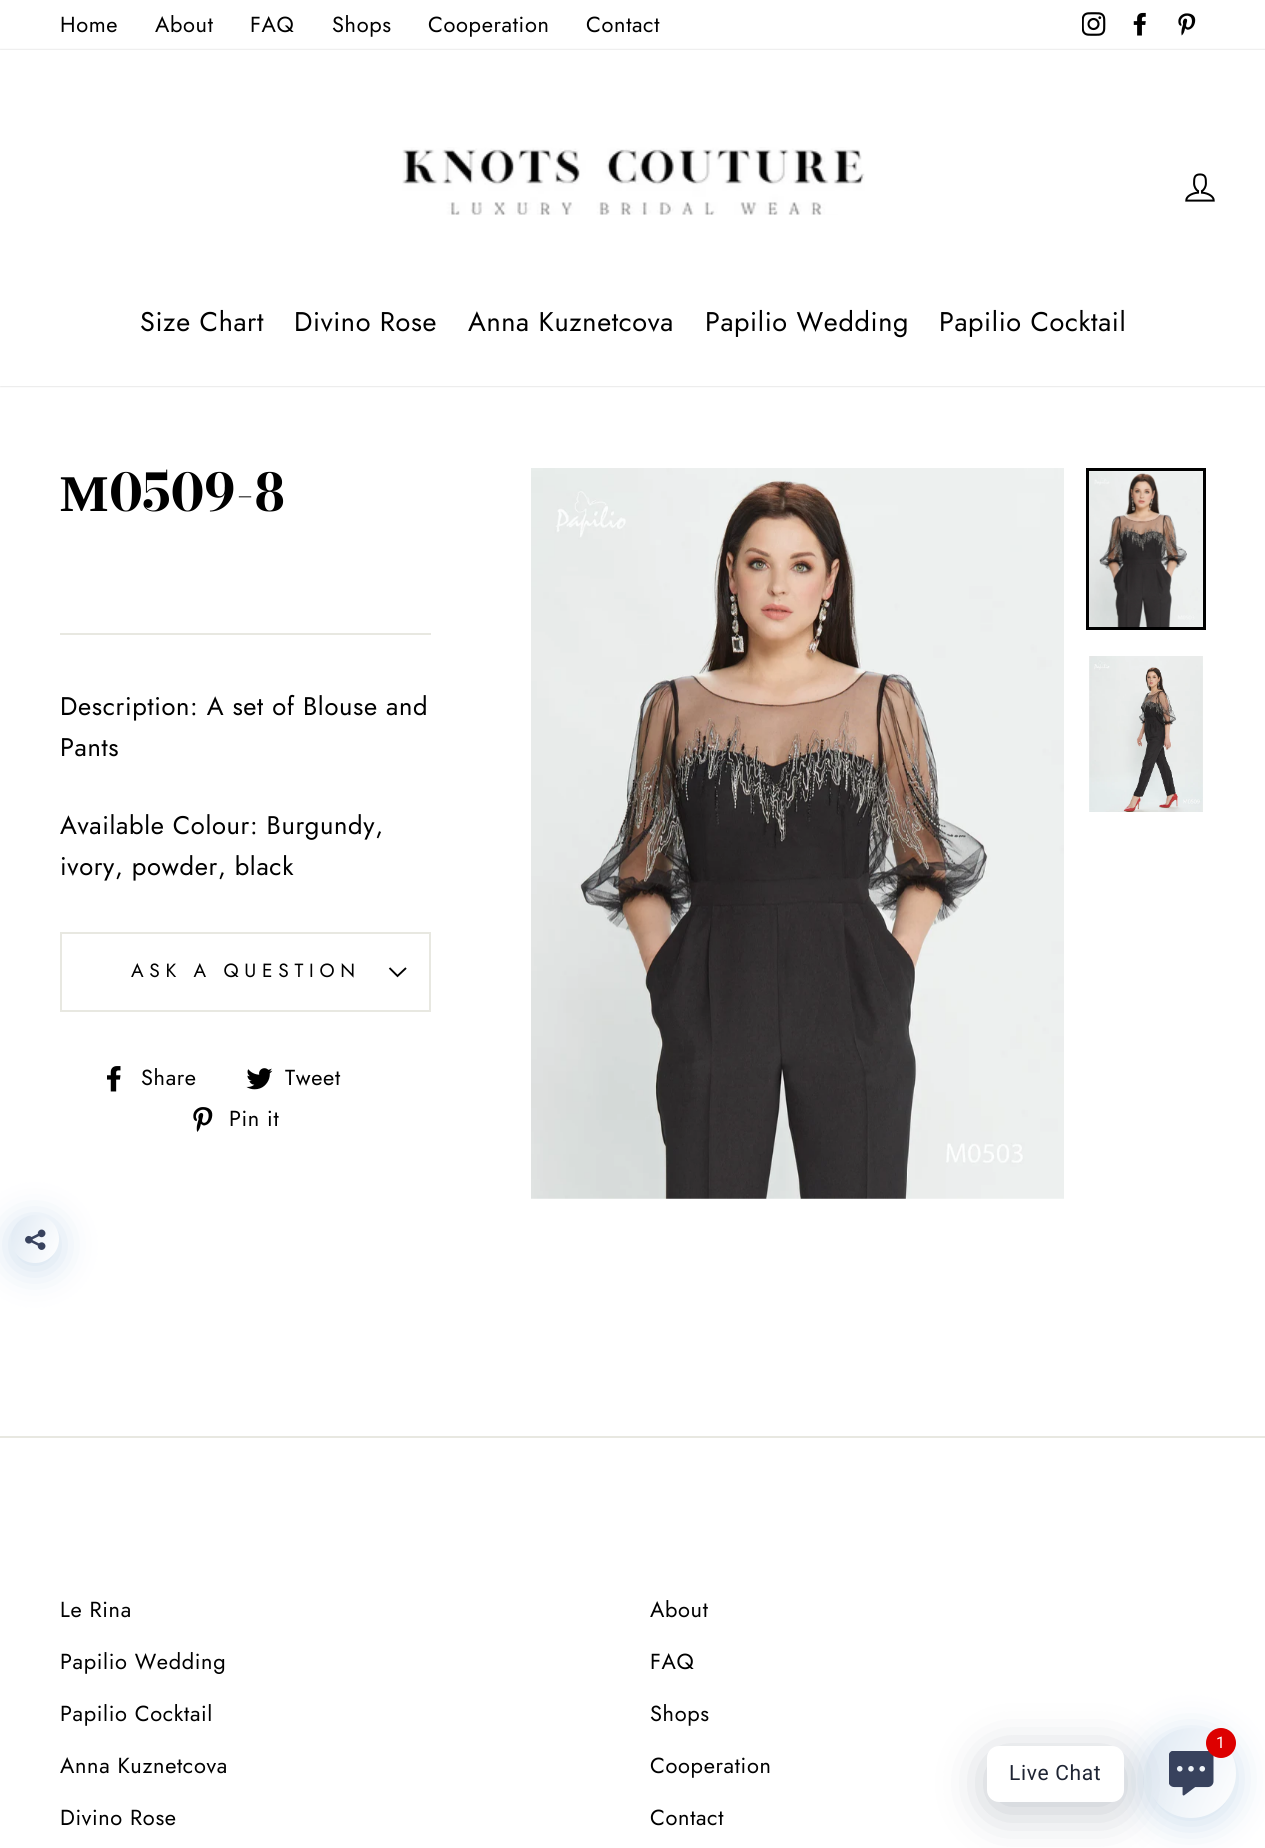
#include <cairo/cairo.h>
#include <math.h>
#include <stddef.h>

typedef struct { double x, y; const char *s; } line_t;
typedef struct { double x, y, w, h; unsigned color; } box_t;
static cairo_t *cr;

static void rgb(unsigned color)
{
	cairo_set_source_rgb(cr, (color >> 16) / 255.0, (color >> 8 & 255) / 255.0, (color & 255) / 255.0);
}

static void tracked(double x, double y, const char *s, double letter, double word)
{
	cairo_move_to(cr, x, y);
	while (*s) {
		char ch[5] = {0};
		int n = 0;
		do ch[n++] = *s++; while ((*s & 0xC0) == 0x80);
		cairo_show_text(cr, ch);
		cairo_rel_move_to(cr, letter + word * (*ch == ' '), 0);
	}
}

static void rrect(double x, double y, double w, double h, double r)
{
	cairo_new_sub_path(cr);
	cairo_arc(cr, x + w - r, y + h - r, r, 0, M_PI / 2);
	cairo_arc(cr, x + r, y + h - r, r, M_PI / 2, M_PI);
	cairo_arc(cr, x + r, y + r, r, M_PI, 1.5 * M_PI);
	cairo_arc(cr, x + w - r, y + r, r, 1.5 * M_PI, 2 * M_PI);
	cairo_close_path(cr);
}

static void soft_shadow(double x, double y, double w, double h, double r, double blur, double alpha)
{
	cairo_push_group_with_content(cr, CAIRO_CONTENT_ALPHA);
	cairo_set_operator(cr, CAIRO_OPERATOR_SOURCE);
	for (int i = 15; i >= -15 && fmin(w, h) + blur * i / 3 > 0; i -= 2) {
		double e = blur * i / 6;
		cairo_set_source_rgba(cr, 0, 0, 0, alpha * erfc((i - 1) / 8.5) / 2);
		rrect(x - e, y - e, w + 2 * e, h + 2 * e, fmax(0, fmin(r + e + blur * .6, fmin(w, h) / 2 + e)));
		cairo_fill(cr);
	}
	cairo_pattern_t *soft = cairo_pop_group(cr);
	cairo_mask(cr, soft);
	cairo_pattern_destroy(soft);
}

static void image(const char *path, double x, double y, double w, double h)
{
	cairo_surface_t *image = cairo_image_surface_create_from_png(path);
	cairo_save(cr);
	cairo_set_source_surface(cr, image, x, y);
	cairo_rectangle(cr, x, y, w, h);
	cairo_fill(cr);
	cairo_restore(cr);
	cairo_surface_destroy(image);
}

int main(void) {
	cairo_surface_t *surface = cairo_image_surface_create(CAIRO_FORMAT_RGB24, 1265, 1848);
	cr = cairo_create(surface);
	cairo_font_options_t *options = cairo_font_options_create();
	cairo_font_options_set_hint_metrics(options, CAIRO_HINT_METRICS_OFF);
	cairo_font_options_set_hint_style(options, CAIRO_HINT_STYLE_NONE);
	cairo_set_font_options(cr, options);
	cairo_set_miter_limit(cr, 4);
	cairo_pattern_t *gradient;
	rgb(0xffffff);
	cairo_paint(cr);
	image("img/1.png", 1082, 12, 24, 24);
	image("img/2.png", 1133, 12, 13, 24);
	image("img/3.png", 1178, 13, 18, 23);
	rgb(0x000000);
	soft_shadow(0, 50, 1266, 336, 0, 1, 0.2);
	rgb(0xffffff);
	cairo_rectangle(cr, 0, 50, 1265, 336);
	cairo_fill(cr);
	image("img/4.png", 402, 147, 463, 68);
	image("img/5.png", 1185, 173, 30, 29);
	{
		static const box_t items[] = {
			{60, 633, 371, 2, 0xe8e8e1},
			{60, 1010, 371, 2, 0xe8e8e1},
			{60, 932, 371, 2, 0xe8e8e1},
			{429, 932, 2, 78, 0xe8e8e1},
			{60, 932, 2, 78, 0xe8e8e1},
		};
		for (size_t i = 0; i < sizeof items / sizeof *items; i++) {
			rgb(items[i].color);
			cairo_rectangle(cr, items[i].x, items[i].y, items[i].w, items[i].h);
			cairo_fill(cr);
		}
	}
	cairo_new_path(cr);
	cairo_move_to(cr, 389.5, 968);
	cairo_line_to(cr, 397.5, 976);
	cairo_line_to(cr, 406, 968);
	rgb(0x000000);
	cairo_set_line_width(cr, 1.9);
	cairo_stroke(cr);
	image("img/6.png", 107, 1066, 14, 26);
	image("img/7.png", 246, 1068, 27, 22);
	image("img/8.png", 193, 1107, 20, 25);
	image("img/9.png", 531, 468, 533, 731);
	cairo_rectangle(cr, 1087.5, 469.5, 117, 159);
	cairo_set_line_width(cr, 3);
	cairo_stroke(cr);
	image("img/10.png", 1089, 471, 114, 156);
	image("img/11.png", 1089, 656, 114, 156);
	rgb(0xe8e8e1);
	cairo_rectangle(cr, 0, 1436, 1265, 2);
	cairo_fill(cr);
	rgb(0x9fbedd);
	soft_shadow(11, 1221, 48, 48, 24, 18, 0.5);
	gradient = cairo_pattern_create_linear(5.6, 1226, 63, 1252);
	cairo_pattern_add_color_stop_rgba(gradient, 0, 0.875, 0.914, 0.953, 1);
	cairo_pattern_add_color_stop_rgba(gradient, 1, 1, 1, 1, 1);
	cairo_set_source(cr, gradient);
	cairo_pattern_destroy(gradient);
	cairo_arc(cr, 35, 1239, 24, 0, 2 * M_PI);
	cairo_fill(cr);
	image("img/12.png", 25, 1229, 21, 21);
	rgb(0x9fbedd);
	soft_shadow(1146, 1734, 90, 90, 45, 18, 0.5);
	gradient = cairo_pattern_create_linear(1137, 1748, 1245, 1798);
	cairo_pattern_add_color_stop_rgba(gradient, 0, 0.875, 0.914, 0.953, 1);
	cairo_pattern_add_color_stop_rgba(gradient, 1, 1, 1, 1, 1);
	cairo_set_source(cr, gradient);
	cairo_pattern_destroy(gradient);
	cairo_arc(cr, 1191, 1773, 45, 0, 2 * M_PI);
	cairo_fill(cr);
	rgb(0x00122e);
	soft_shadow(987, 1755, 137, 56, 12, 24, 0.24);
	image("img/13.png", 1169, 1751, 45, 45);
	rgb(0xdd0000);
	cairo_arc(cr, 1221, 1743, 15, 0, 2 * M_PI);
	cairo_fill(cr);
	rgb(0xffffff);
	rrect(987, 1746, 137, 56, 12);
	cairo_fill(cr);
	cairo_select_font_face(cr, "Jost", CAIRO_FONT_SLANT_NORMAL, CAIRO_FONT_WEIGHT_NORMAL);
	cairo_set_font_size(cr, 21.75);
	rgb(0x000000);
	{
		static const line_t items[] = {
			{60, 32, "Home"},
			{155, 32, "About"},
			{250, 32, "FAQ"},
			{332, 32, "Shops"},
			{428, 32, "Cooperation"},
			{586, 32, "Contact"},
		};
		for (size_t i = 0; i < sizeof items / sizeof *items; i++) {
			tracked(items[i].x, items[i].y, items[i].s, 0.65, 0);
		}
	}
	cairo_set_font_size(cr, 27);
	{
		static const line_t items[] = {
			{140, 331, "Size Chart"},
			{294, 331, "Divino Rose"},
			{468, 331, "Anna Kuznetcova"},
			{705, 331, "Papilio Wedding"},
			{939, 331, "Papilio Cocktail"},
		};
		for (size_t i = 0; i < sizeof items / sizeof *items; i++) {
			tracked(items[i].x, items[i].y, items[i].s, 0.65, 0);
		}
	}
	cairo_select_font_face(cr, "Liberation Serif", CAIRO_FONT_SLANT_NORMAL, CAIRO_FONT_WEIGHT_BOLD);
	cairo_set_font_size(cr, 51.5);
	cairo_move_to(cr, 60, 511);
	cairo_show_text(cr, "М");
	cairo_select_font_face(cr, "Bodoni Moda", CAIRO_FONT_SLANT_NORMAL, CAIRO_FONT_WEIGHT_BOLD);
	cairo_move_to(cr, 109, 511);
	cairo_show_text(cr, "0509-8");
	cairo_select_font_face(cr, "Jost", CAIRO_FONT_SLANT_NORMAL, CAIRO_FONT_WEIGHT_NORMAL);
	cairo_set_font_size(cr, 25.5);
	{
		static const line_t items[] = {
			{60, 715, "Description: A set of Blouse and"},
			{60, 756, "Pants"},
			{60, 834, "Available Colour: Burgundy,"},
			{60, 875, "ivory, powder, black"},
		};
		for (size_t i = 0; i < sizeof items / sizeof *items; i++) {
			tracked(items[i].x, items[i].y, items[i].s, 0.65, 0);
		}
	}
	cairo_set_font_size(cr, 19.1);
	tracked(131, 977, "ASK A QUESTION", 5.75, 0);
	cairo_set_font_size(cr, 21.75);
	{
		static const line_t items[] = {
			{141, 1085, "Share"},
			{285, 1085, "Tweet"},
			{229, 1126, "Pin it"},
			{60, 1617, "Le Rina"},
			{60, 1669, "Papilio Wedding"},
			{60, 1721, "Papilio Cocktail"},
			{60, 1773, "Anna Kuznetcova"},
			{60, 1825, "Divino Rose"},
			{650, 1617, "About"},
			{650, 1669, "FAQ"},
			{650, 1721, "Shops"},
			{650, 1773, "Cooperation"},
			{650, 1825, "Contact"},
		};
		for (size_t i = 0; i < sizeof items / sizeof *items; i++) {
			tracked(items[i].x, items[i].y, items[i].s, 0.65, 0);
		}
	}
	cairo_select_font_face(cr, "Roboto", CAIRO_FONT_SLANT_NORMAL, CAIRO_FONT_WEIGHT_NORMAL);
	cairo_set_font_size(cr, 16);
	rgb(0xffffff);
	tracked(1216, 1748, "1", 0.65, 0);
	cairo_set_font_size(cr, 21);
	rgb(0x1e2433);
	tracked(1009, 1780, "Live Chat", 0.65, 0);
	cairo_surface_write_to_png(surface, "page.png");
	cairo_font_options_destroy(options);
	cairo_destroy(cr);
	cairo_surface_destroy(surface);
	return 0;
}
